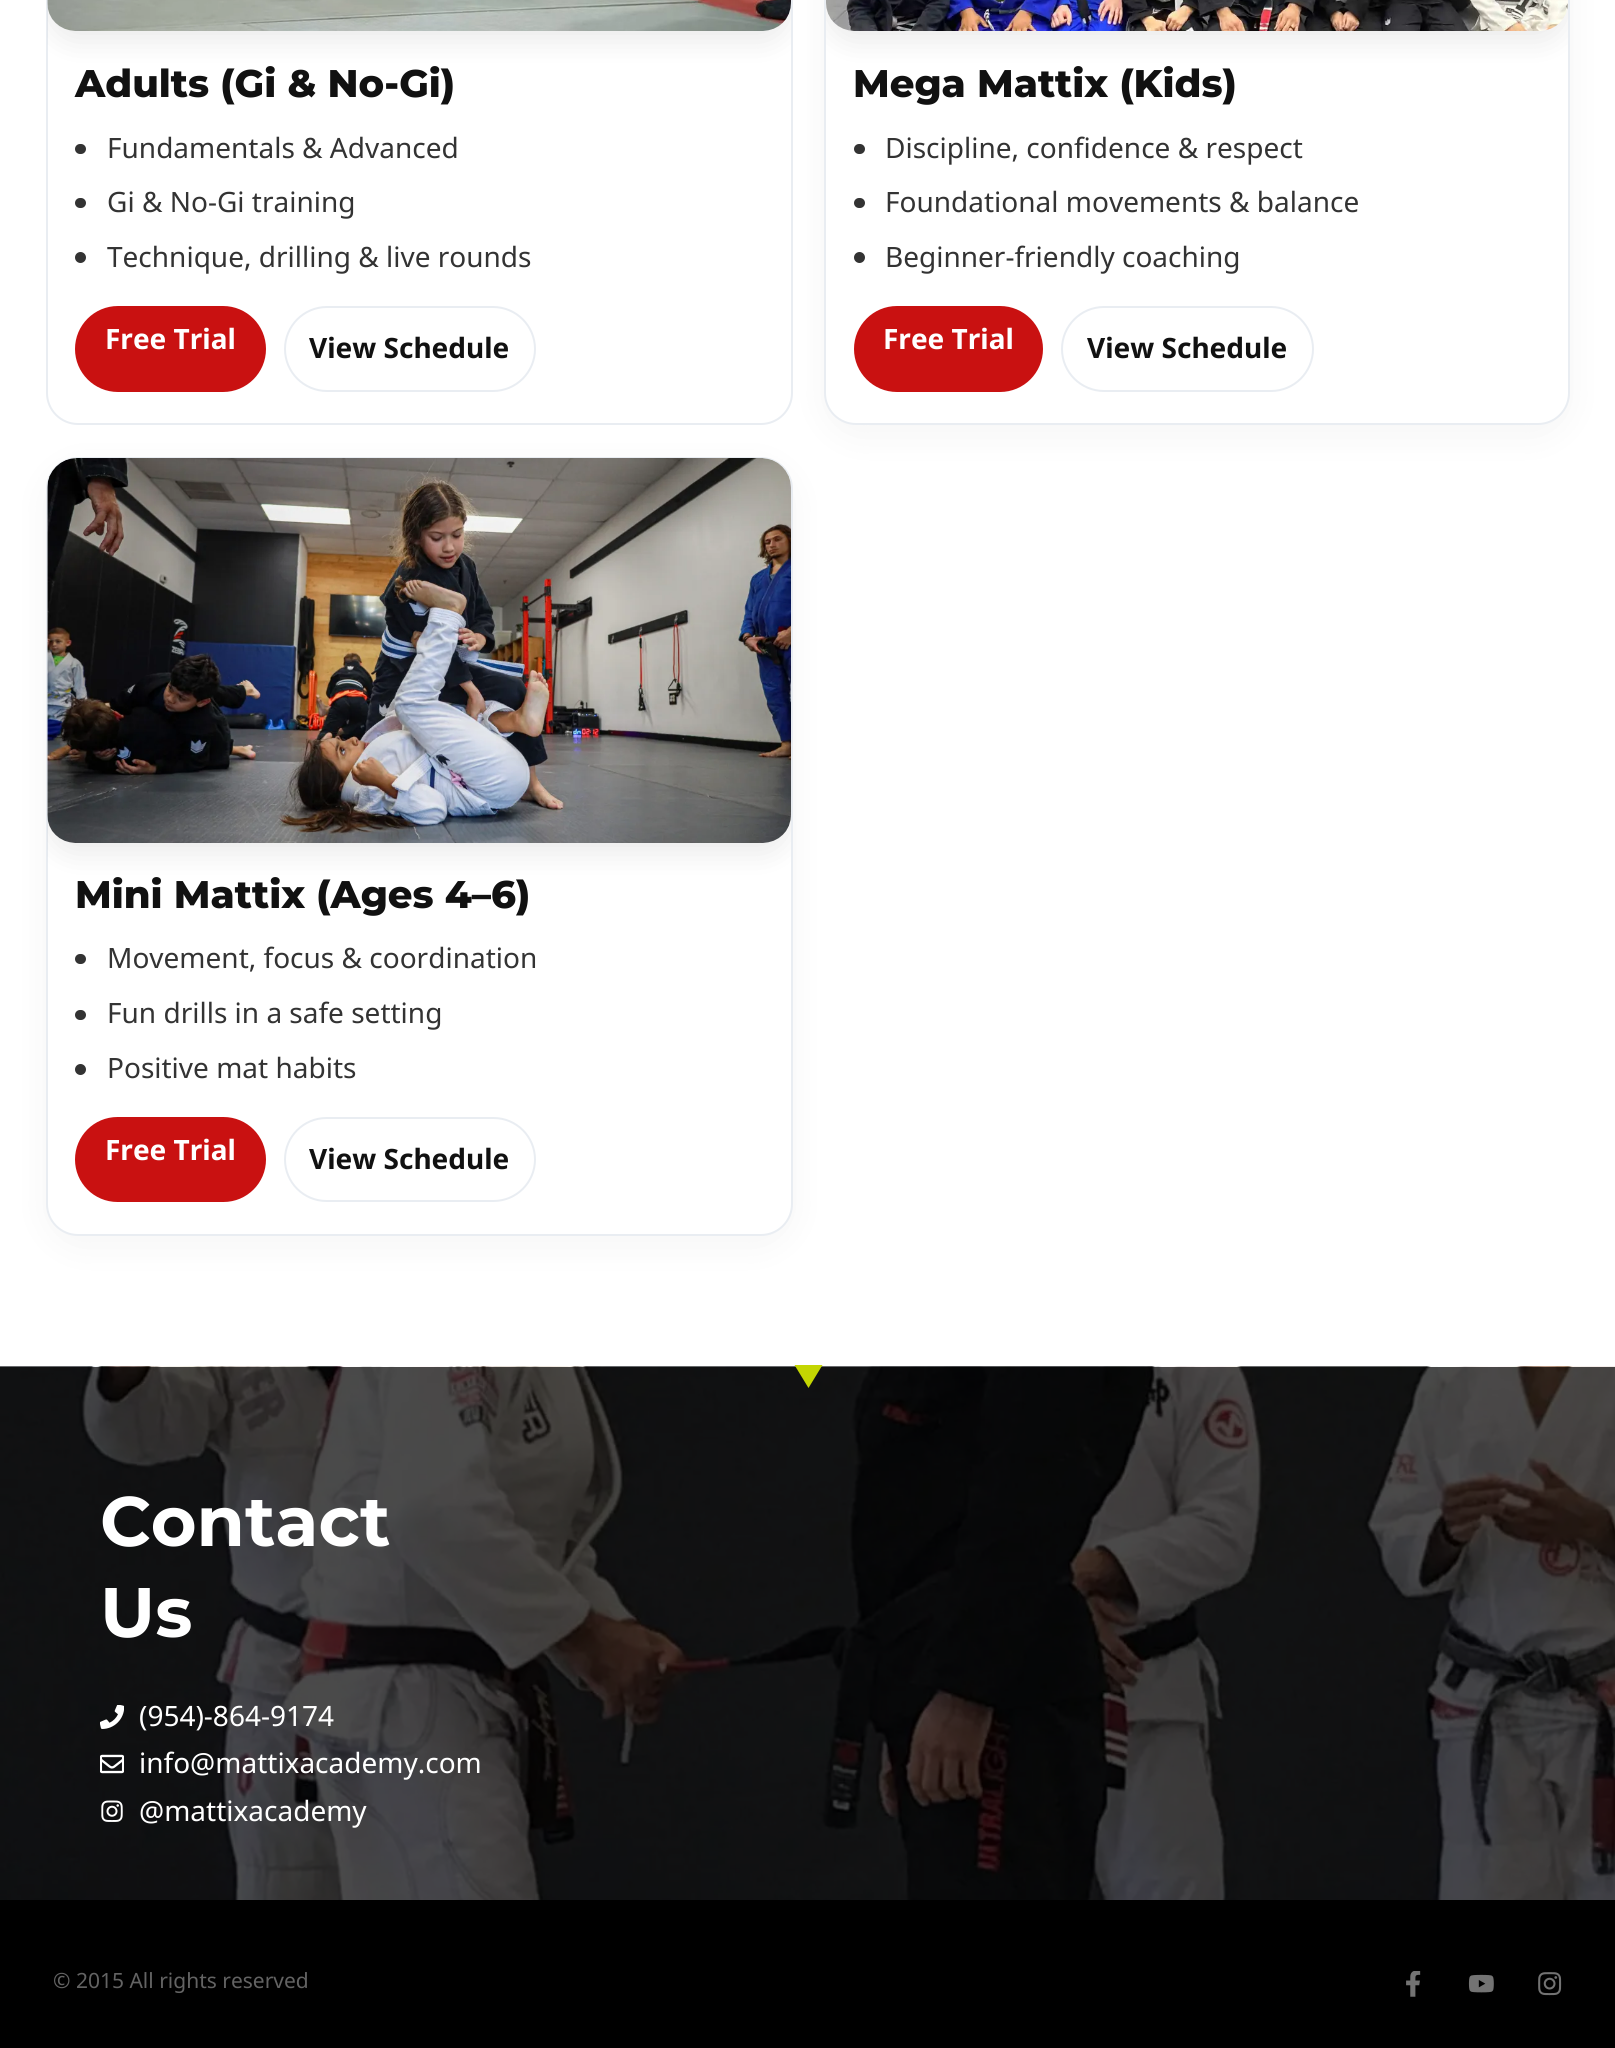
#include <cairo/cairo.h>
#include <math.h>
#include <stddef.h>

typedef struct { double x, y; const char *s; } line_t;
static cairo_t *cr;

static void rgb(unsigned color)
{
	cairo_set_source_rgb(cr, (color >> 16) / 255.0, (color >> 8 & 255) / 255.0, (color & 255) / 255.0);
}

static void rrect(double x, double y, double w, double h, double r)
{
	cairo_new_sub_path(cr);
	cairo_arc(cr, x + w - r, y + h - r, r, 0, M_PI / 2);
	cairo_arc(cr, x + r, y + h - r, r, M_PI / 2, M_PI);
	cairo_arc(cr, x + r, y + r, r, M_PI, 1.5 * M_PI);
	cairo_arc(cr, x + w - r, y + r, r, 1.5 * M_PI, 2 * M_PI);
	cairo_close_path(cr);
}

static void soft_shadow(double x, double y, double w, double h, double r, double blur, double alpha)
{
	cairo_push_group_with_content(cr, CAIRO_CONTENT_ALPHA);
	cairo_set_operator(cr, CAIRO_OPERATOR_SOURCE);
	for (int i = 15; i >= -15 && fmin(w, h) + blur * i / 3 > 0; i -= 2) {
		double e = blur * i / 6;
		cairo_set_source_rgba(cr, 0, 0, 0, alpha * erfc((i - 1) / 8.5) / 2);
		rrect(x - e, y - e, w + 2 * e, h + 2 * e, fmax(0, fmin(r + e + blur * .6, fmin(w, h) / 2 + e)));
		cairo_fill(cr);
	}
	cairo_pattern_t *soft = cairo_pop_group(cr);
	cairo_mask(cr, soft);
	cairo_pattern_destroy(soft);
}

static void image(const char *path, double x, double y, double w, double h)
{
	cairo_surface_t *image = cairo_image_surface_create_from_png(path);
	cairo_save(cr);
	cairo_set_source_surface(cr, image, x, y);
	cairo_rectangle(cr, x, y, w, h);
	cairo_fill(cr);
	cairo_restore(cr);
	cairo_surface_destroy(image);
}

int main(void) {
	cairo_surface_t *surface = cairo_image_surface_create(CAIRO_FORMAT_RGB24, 1615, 2048);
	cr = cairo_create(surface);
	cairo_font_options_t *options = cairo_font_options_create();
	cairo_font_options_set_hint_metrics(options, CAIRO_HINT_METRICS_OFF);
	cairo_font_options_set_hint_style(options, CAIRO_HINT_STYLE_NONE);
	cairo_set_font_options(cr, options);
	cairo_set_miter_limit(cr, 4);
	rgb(0xffffff);
	cairo_paint(cr);
	rrect(47, -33, 745, 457, 31);
	rgb(0xe9edf2);
	cairo_stroke(cr);
	cairo_save(cr);
	rrect(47, -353, 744, 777, 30);
	cairo_clip(cr);
	rgb(0x000000);
	soft_shadow(47, -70, 744, 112, 28, 14, 0.08);
	cairo_restore(cr);
	image("img/1.png", 47, 0, 744, 31);
	rgb(0x333333);
	rrect(75, 144, 11, 10, 5);
	cairo_fill(cr);
	rrect(75, 198, 11, 10, 5);
	cairo_fill(cr);
	cairo_arc(cr, 80.5, 257.5, 5.5, 0, 2 * M_PI);
	cairo_fill(cr);
	rgb(0xc91111);
	rrect(76, 307, 189, 84, 42);
	cairo_fill_preserve(cr);
	cairo_stroke(cr);
	rrect(285, 307, 250, 84, 42);
	rgb(0xe9edf2);
	cairo_stroke(cr);
	rgb(0x000000);
	soft_shadow(824, -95, 746, 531, 32, 21, 0.04);
	rgb(0xffffff);
	rrect(825, -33, 744, 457, 31);
	cairo_fill_preserve(cr);
	rgb(0xe9edf2);
	cairo_stroke(cr);
	cairo_save(cr);
	rrect(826, -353, 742, 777, 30);
	cairo_clip(cr);
	rgb(0x000000);
	soft_shadow(826, -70, 742, 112, 28, 14, 0.08);
	cairo_restore(cr);
	image("img/2.png", 826, 0, 742, 31);
	rgb(0x333333);
	rrect(854, 144, 11, 10, 5);
	cairo_fill(cr);
	rrect(854, 198, 11, 10, 5);
	cairo_fill(cr);
	cairo_arc(cr, 859.5, 257.5, 5.5, 0, 2 * M_PI);
	cairo_fill(cr);
	rgb(0xc91111);
	rrect(855, 307, 187, 84, 42);
	cairo_fill_preserve(cr);
	cairo_stroke(cr);
	rrect(1062, 307, 251, 84, 42);
	rgb(0xe9edf2);
	cairo_stroke(cr);
	rgb(0x000000);
	soft_shadow(46, 467, 747, 779, 32, 21, 0.04);
	rgb(0xffffff);
	rrect(47, 458, 745, 777, 31);
	cairo_fill_preserve(cr);
	rgb(0xe9edf2);
	cairo_stroke(cr);
	cairo_save(cr);
	rrect(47, 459, 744, 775, 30);
	cairo_clip(cr);
	rgb(0x000000);
	soft_shadow(47, 469, 744, 385, 28, 14, 0.08);
	cairo_restore(cr);
	image("img/3.png", 47, 458, 744, 385);
	rgb(0x333333);
	rrect(75, 954, 11, 10, 5);
	cairo_fill(cr);
	rrect(75, 1010, 11, 10, 5);
	cairo_fill(cr);
	cairo_arc(cr, 80.5, 1069.5, 5.5, 0, 2 * M_PI);
	cairo_fill(cr);
	rgb(0xc91111);
	rrect(76, 1118, 189, 83, 41.5);
	cairo_fill_preserve(cr);
	cairo_stroke(cr);
	rrect(285, 1118, 250, 83, 41.5);
	rgb(0xe9edf2);
	cairo_stroke(cr);
	rgb(0x000000);
	cairo_rectangle(cr, 0, 1900, 1615, 148);
	cairo_fill(cr);
	image("img/4.png", 0, 1366, 1615, 534);
	rgb(0xc4d602);
	cairo_new_path(cr);
	cairo_move_to(cr, 808.5, 1388);
	cairo_line_to(cr, 794.5, 1365);
	cairo_line_to(cr, 822.5, 1365);
	cairo_close_path(cr);
	cairo_fill(cr);
	image("img/5.png", 100, 1705, 24, 24);
	image("img/6.png", 100, 1754, 24, 20);
	image("img/7.png", 101, 1800, 22, 22);
	image("img/8.png", 1406, 1971, 15, 26);
	image("img/9.png", 1468, 1974, 26, 19);
	image("img/10.png", 1538, 1972, 24, 24);
	cairo_select_font_face(cr, "Montserrat ExtraBold", CAIRO_FONT_SLANT_NORMAL, CAIRO_FONT_WEIGHT_NORMAL);
	cairo_set_font_size(cr, 38.5);
	rgb(0x111111);
	cairo_move_to(cr, 75, 97);
	cairo_show_text(cr, "Adults (Gi & No-Gi)");
	cairo_select_font_face(cr, "Noto Sans", CAIRO_FONT_SLANT_NORMAL, CAIRO_FONT_WEIGHT_NORMAL);
	cairo_set_font_size(cr, 28);
	rgb(0x333333);
	{
		static const line_t items[] = {
			{107, 158, "Fundamentals & Advanced"},
			{107, 212, "Gi & No-Gi training"},
			{107, 267, "Technique, drilling & live rounds"},
		};
		for (size_t i = 0; i < sizeof items / sizeof *items; i++) {
			cairo_move_to(cr, items[i].x, items[i].y);
			cairo_show_text(cr, items[i].s);
		}
	}
	cairo_select_font_face(cr, "Noto Sans", CAIRO_FONT_SLANT_NORMAL, CAIRO_FONT_WEIGHT_BOLD);
	rgb(0xffffff);
	cairo_move_to(cr, 105, 349);
	cairo_show_text(cr, "Free Trial");
	rgb(0x111111);
	cairo_move_to(cr, 309, 358);
	cairo_show_text(cr, "View Schedule");
	cairo_select_font_face(cr, "Montserrat ExtraBold", CAIRO_FONT_SLANT_NORMAL, CAIRO_FONT_WEIGHT_NORMAL);
	cairo_set_font_size(cr, 38.5);
	cairo_move_to(cr, 853, 97);
	cairo_show_text(cr, "Mega Mattix (Kids)");
	cairo_select_font_face(cr, "Noto Sans", CAIRO_FONT_SLANT_NORMAL, CAIRO_FONT_WEIGHT_NORMAL);
	cairo_set_font_size(cr, 28);
	rgb(0x333333);
	{
		static const line_t items[] = {
			{885, 158, "Discipline, confidence & respect"},
			{885, 212, "Foundational movements & balance"},
			{885, 267, "Beginner-friendly coaching"},
		};
		for (size_t i = 0; i < sizeof items / sizeof *items; i++) {
			cairo_move_to(cr, items[i].x, items[i].y);
			cairo_show_text(cr, items[i].s);
		}
	}
	cairo_select_font_face(cr, "Noto Sans", CAIRO_FONT_SLANT_NORMAL, CAIRO_FONT_WEIGHT_BOLD);
	rgb(0xffffff);
	cairo_move_to(cr, 883, 349);
	cairo_show_text(cr, "Free Trial");
	rgb(0x111111);
	cairo_move_to(cr, 1087, 358);
	cairo_show_text(cr, "View Schedule");
	cairo_select_font_face(cr, "Montserrat ExtraBold", CAIRO_FONT_SLANT_NORMAL, CAIRO_FONT_WEIGHT_NORMAL);
	cairo_set_font_size(cr, 38.5);
	cairo_move_to(cr, 75, 908);
	cairo_show_text(cr, "Mini Mattix (Ages 4–6)");
	cairo_select_font_face(cr, "Noto Sans", CAIRO_FONT_SLANT_NORMAL, CAIRO_FONT_WEIGHT_NORMAL);
	cairo_set_font_size(cr, 28);
	rgb(0x333333);
	{
		static const line_t items[] = {
			{107, 968, "Movement, focus & coordination"},
			{107, 1023, "Fun drills in a safe setting"},
			{107, 1078, "Positive mat habits"},
		};
		for (size_t i = 0; i < sizeof items / sizeof *items; i++) {
			cairo_move_to(cr, items[i].x, items[i].y);
			cairo_show_text(cr, items[i].s);
		}
	}
	cairo_select_font_face(cr, "Noto Sans", CAIRO_FONT_SLANT_NORMAL, CAIRO_FONT_WEIGHT_BOLD);
	rgb(0xffffff);
	cairo_move_to(cr, 105, 1160);
	cairo_show_text(cr, "Free Trial");
	rgb(0x111111);
	cairo_move_to(cr, 309, 1169);
	cairo_show_text(cr, "View Schedule");
	cairo_select_font_face(cr, "Montserrat", CAIRO_FONT_SLANT_NORMAL, CAIRO_FONT_WEIGHT_BOLD);
	cairo_set_font_size(cr, 70);
	rgb(0xffffff);
	cairo_move_to(cr, 100, 1546);
	cairo_show_text(cr, "Contact");
	cairo_move_to(cr, 100, 1637);
	cairo_show_text(cr, "Us");
	cairo_select_font_face(cr, "Noto Sans", CAIRO_FONT_SLANT_NORMAL, CAIRO_FONT_WEIGHT_NORMAL);
	cairo_set_font_size(cr, 28);
	{
		static const line_t items[] = {
			{139, 1726, "(954)-864-9174"},
			{139, 1773, "info@mattixacademy.com"},
			{139, 1821, "@mattixacademy"},
		};
		for (size_t i = 0; i < sizeof items / sizeof *items; i++) {
			cairo_move_to(cr, items[i].x, items[i].y);
			cairo_show_text(cr, items[i].s);
		}
	}
	cairo_set_font_size(cr, 21);
	rgb(0x636363);
	cairo_move_to(cr, 53, 1988);
	cairo_show_text(cr, "© 2015 All rights reserved");
	cairo_surface_write_to_png(surface, "page.png");
	cairo_font_options_destroy(options);
	cairo_destroy(cr);
	cairo_surface_destroy(surface);
	return 0;
}
